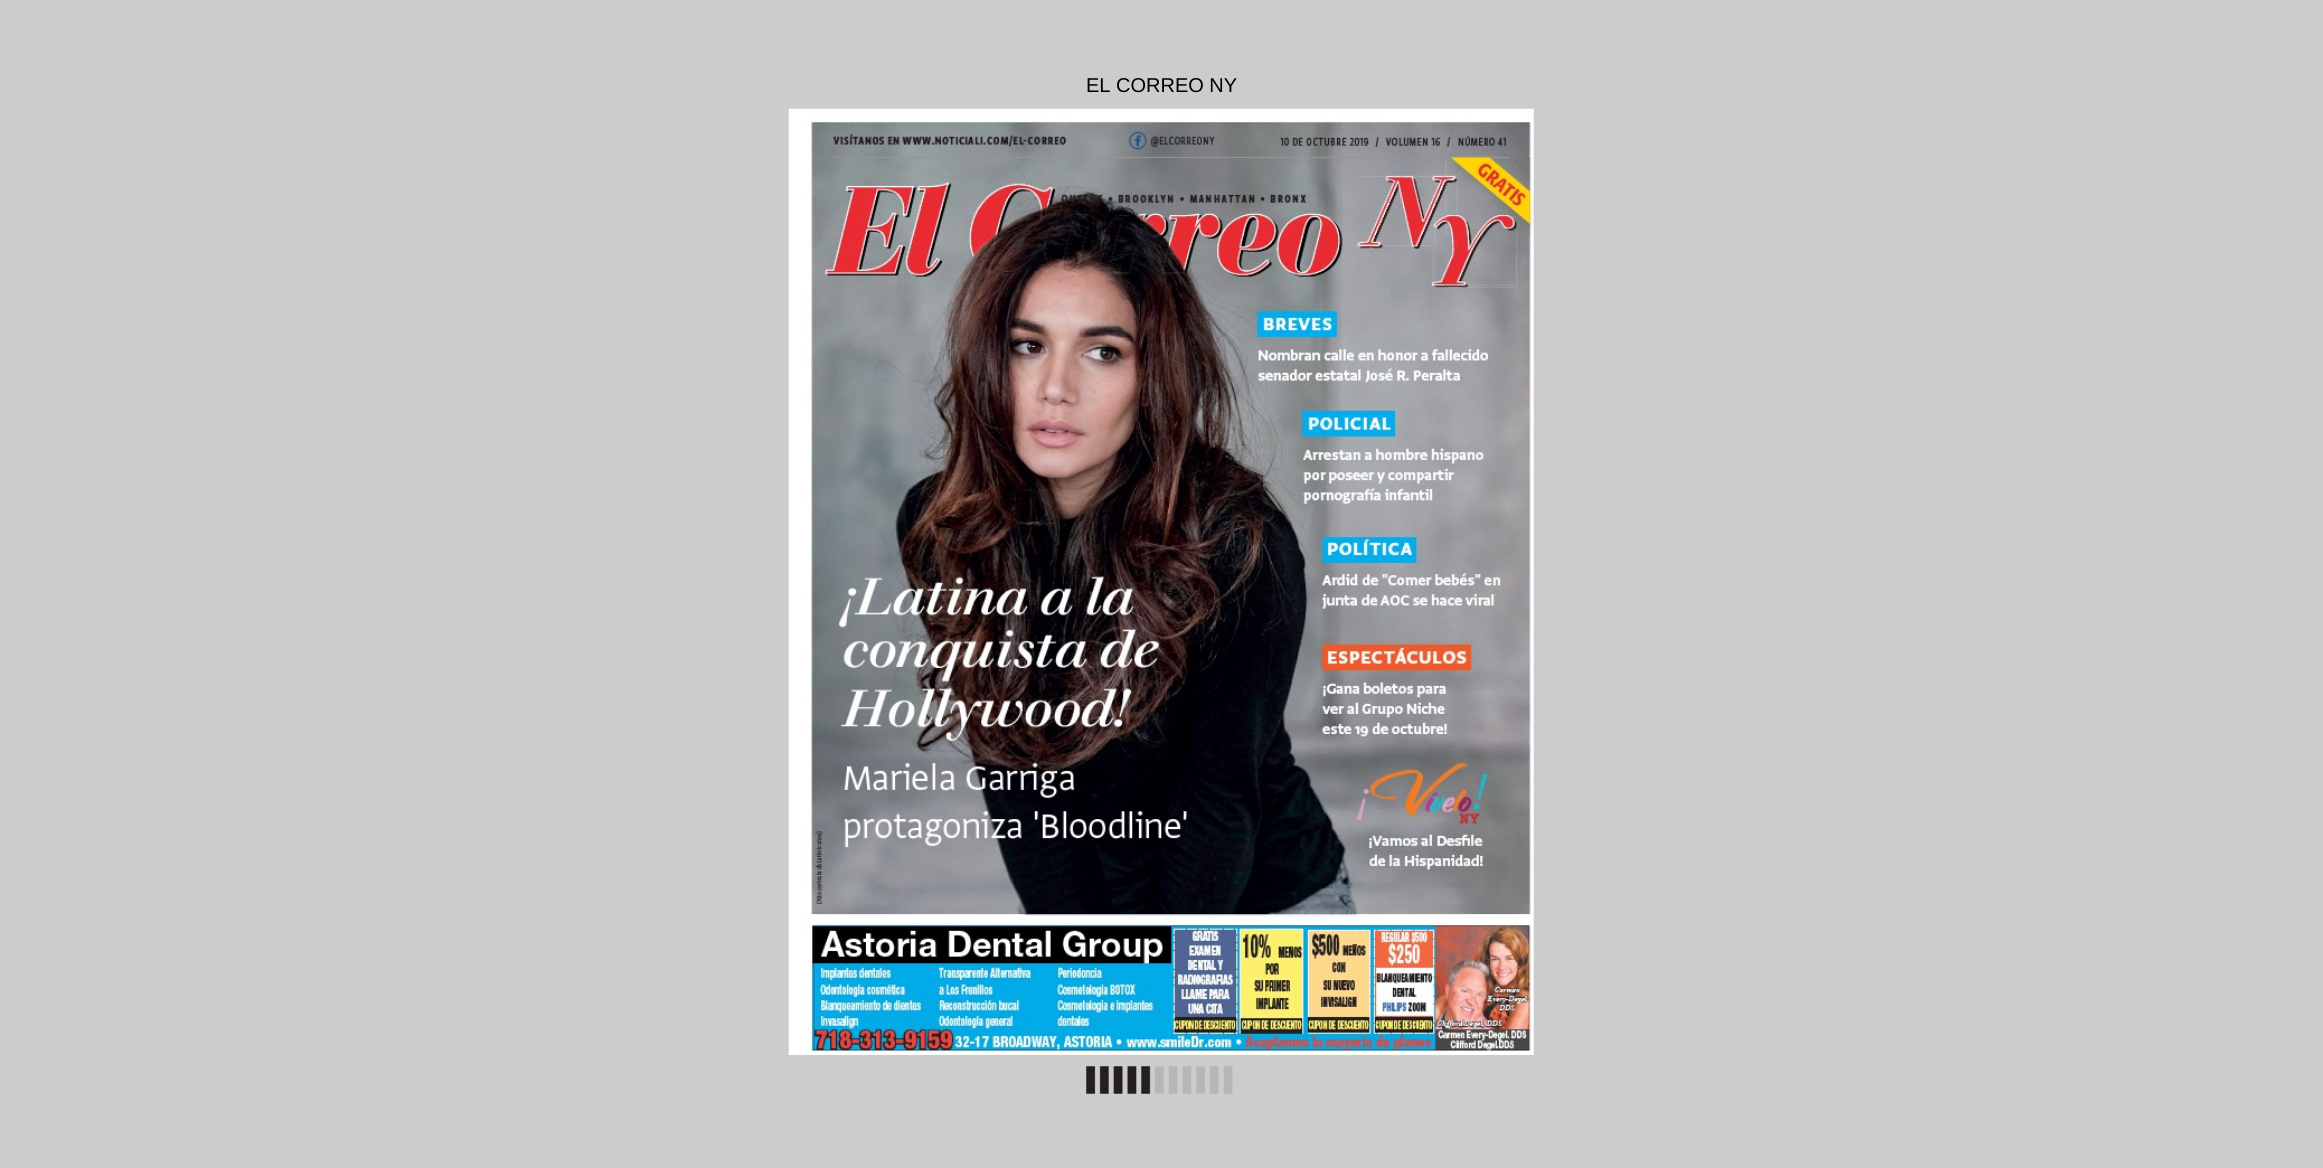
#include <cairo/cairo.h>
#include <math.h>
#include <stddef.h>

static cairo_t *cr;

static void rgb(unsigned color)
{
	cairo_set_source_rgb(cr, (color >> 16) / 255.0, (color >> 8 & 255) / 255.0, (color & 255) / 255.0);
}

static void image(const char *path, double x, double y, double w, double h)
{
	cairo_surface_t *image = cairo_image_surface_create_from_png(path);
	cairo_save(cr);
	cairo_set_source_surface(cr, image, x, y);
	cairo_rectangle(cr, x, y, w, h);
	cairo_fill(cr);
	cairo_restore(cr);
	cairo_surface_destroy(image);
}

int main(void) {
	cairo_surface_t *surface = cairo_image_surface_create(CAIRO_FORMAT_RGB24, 2323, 1168);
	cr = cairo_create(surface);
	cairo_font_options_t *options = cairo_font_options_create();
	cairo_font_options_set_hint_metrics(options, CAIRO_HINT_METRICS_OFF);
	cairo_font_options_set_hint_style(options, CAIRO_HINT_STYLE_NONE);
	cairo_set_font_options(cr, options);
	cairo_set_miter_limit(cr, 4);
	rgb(0xcccccc);
	cairo_paint(cr);
	image("img/1.png", 788, 108, 746, 947);
	image("img/2.png", 1086, 1066, 147, 28);
	cairo_select_font_face(cr, "Liberation Sans", CAIRO_FONT_SLANT_NORMAL, CAIRO_FONT_WEIGHT_NORMAL);
	cairo_set_font_size(cr, 20);
	rgb(0x000000);
	cairo_move_to(cr, 1086, 92);
	cairo_show_text(cr, "EL CORREO NY");
	cairo_surface_write_to_png(surface, "page.png");
	cairo_font_options_destroy(options);
	cairo_destroy(cr);
	cairo_surface_destroy(surface);
	return 0;
}
